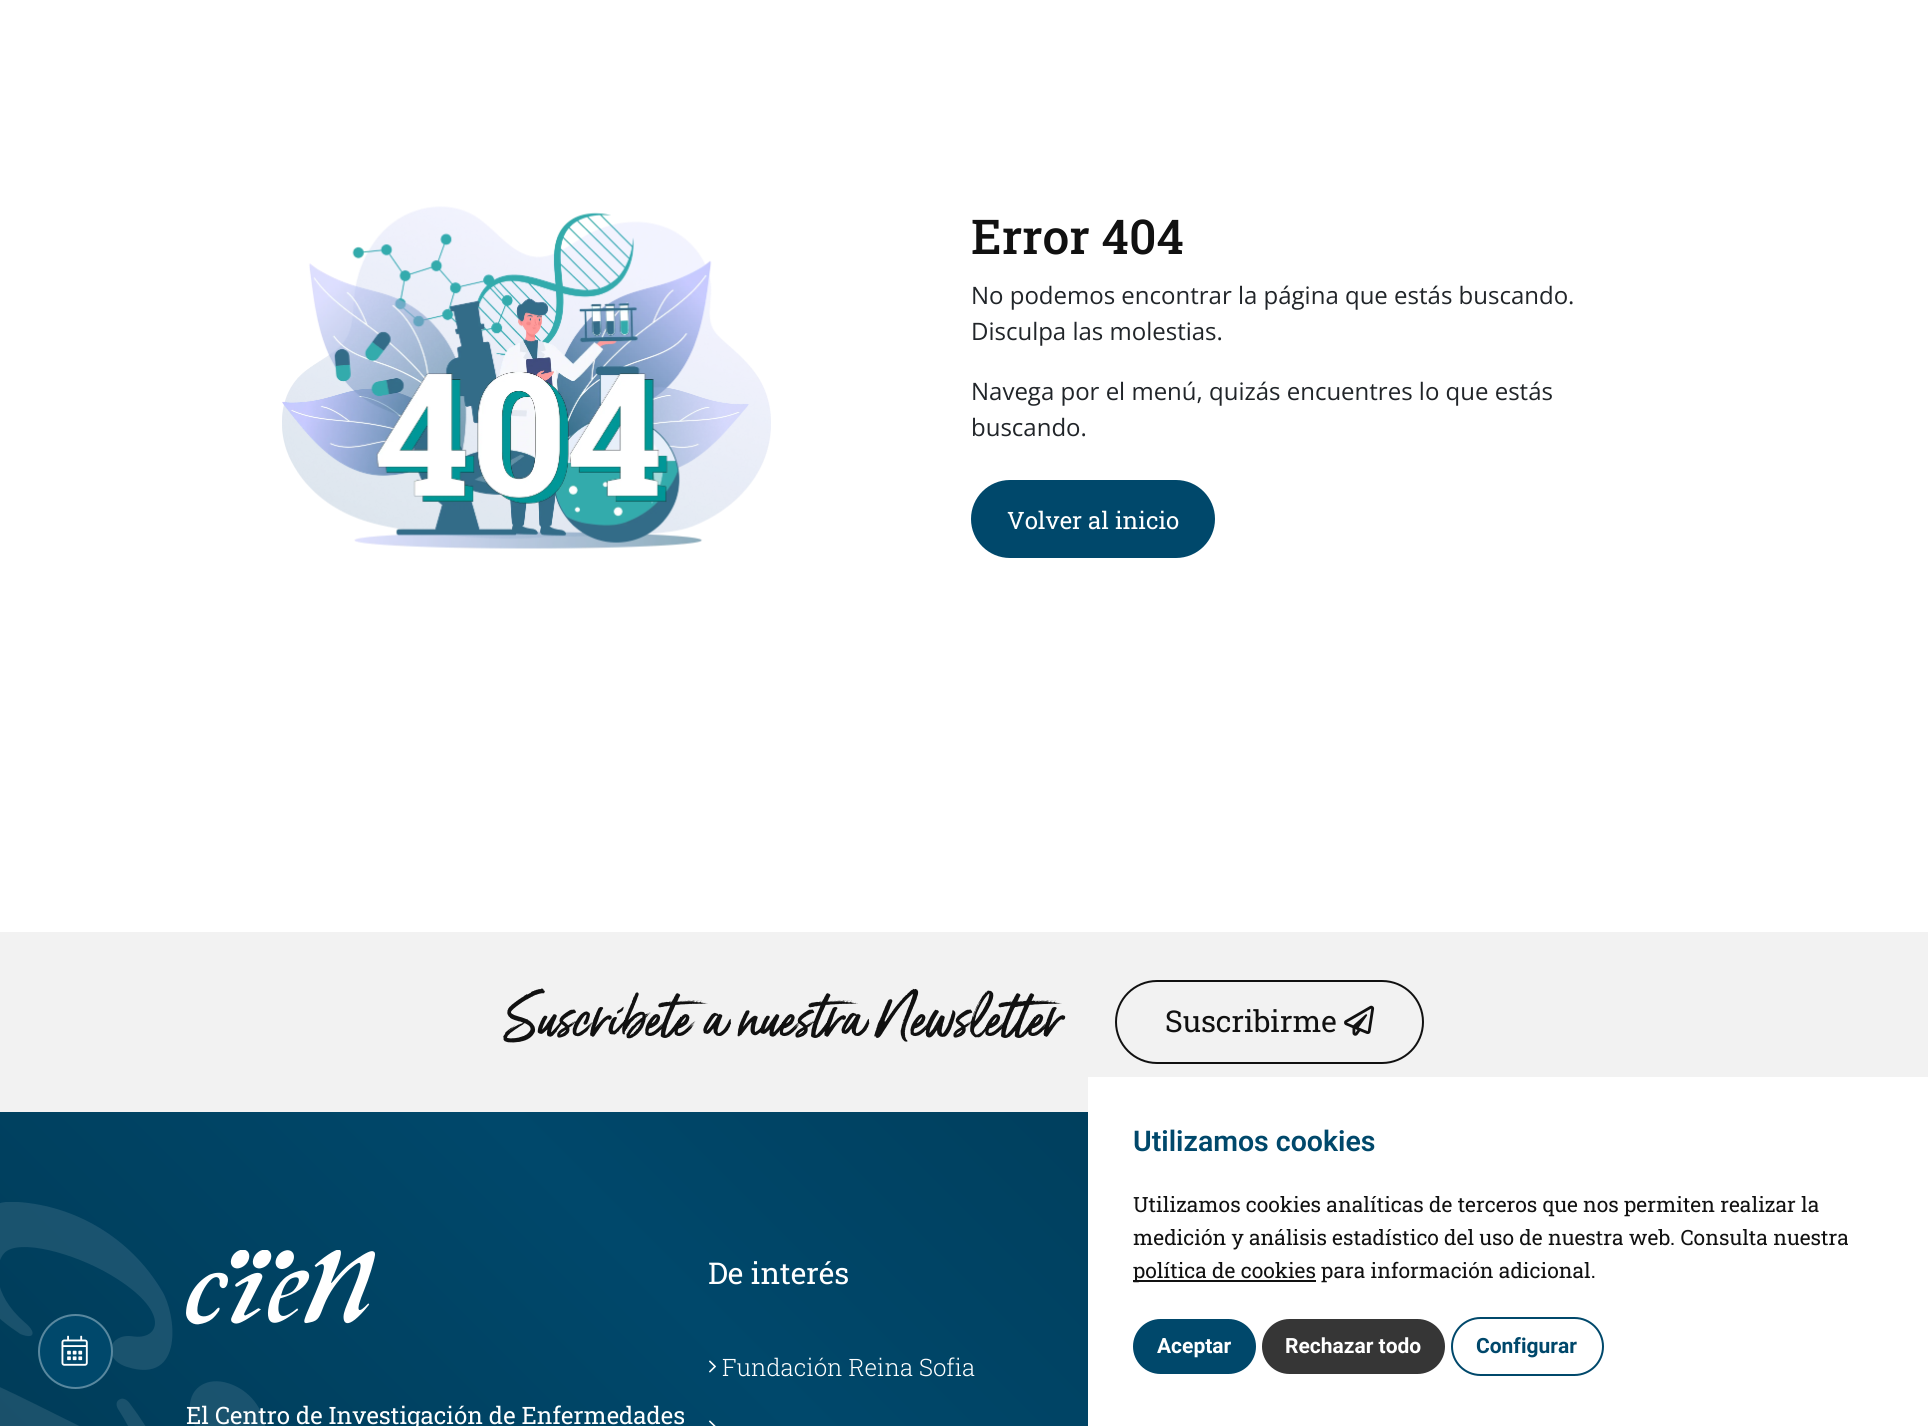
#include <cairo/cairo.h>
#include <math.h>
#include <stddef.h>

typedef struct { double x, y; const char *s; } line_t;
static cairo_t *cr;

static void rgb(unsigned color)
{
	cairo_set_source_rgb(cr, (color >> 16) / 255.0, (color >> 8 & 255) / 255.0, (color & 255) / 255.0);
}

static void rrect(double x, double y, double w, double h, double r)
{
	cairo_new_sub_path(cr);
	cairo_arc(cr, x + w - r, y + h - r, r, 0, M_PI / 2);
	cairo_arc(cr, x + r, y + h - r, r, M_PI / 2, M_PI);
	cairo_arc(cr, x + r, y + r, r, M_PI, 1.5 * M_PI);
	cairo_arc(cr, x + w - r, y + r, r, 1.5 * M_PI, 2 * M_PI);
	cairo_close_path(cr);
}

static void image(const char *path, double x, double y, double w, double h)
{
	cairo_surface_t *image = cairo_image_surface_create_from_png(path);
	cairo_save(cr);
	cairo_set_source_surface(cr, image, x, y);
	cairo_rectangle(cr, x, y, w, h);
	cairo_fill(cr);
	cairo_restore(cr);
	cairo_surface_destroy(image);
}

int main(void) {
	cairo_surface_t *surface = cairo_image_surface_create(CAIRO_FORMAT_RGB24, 1928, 1426);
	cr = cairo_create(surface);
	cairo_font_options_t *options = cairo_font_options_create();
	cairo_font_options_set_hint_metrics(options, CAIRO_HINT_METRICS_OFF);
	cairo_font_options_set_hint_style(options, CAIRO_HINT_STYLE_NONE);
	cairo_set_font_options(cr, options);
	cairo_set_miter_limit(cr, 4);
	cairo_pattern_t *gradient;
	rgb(0xffffff);
	cairo_paint(cr);
	image("img/1.png", 282, 206, 489, 343);
	rgb(0x00486b);
	rrect(971, 480, 244, 78, 39);
	cairo_fill(cr);
	rgb(0xf2f2f2);
	cairo_rectangle(cr, 0, 932, 1928, 180);
	cairo_fill(cr);
	rrect(1116, 981, 307, 82, 41);
	rgb(0x111111);
	cairo_stroke(cr);
	image("img/2.png", 1344, 1005, 31, 31);
	gradient = cairo_pattern_create_linear(248, 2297, 1681, 864);
	cairo_pattern_add_color_stop_rgba(gradient, 0, 0, 0.2, 0.294, 1);
	cairo_pattern_add_color_stop_rgba(gradient, 0.5, 0, 0.282, 0.42, 1);
	cairo_pattern_add_color_stop_rgba(gradient, 1, 0, 0.2, 0.294, 1);
	cairo_set_source(cr, gradient);
	cairo_pattern_destroy(gradient);
	cairo_rectangle(cr, 0, 1112, 1088, 314);
	cairo_fill(cr);
	image("img/4.png", 0, 1202, 265, 224);
	rgb(0x00486b);
	cairo_arc(cr, 75.5, 1351.5, 37.5, 0, 2 * M_PI);
	cairo_fill(cr);
	cairo_arc(cr, 75.5, 1351.5, 36.5, 0, 2 * M_PI);
	cairo_set_source_rgba(cr, 1, 1, 1, 0.35);
	cairo_stroke(cr);
	image("img/3.png", 61, 1335, 27, 31);
	image("img/5.png", 709, 1360, 7, 13);
	image("img/6.png", 709, 1420, 7, 6);
	image("img/7.png", 186, 1250, 189, 75);
	rgb(0xffffff);
	cairo_rectangle(cr, 1088, 1077, 840, 35);
	cairo_fill(cr);
	rgb(0x111111);
	cairo_rectangle(cr, 1133, 1280, 183, 2);
	cairo_fill(cr);
	rgb(0x00486b);
	rrect(1133, 1319, 123, 55, 27.5);
	cairo_fill(cr);
	rgb(0x363636);
	rrect(1262, 1319, 183, 55, 27.5);
	cairo_fill(cr);
	rrect(1452, 1318, 151, 57, 28.5);
	rgb(0x00486b);
	cairo_stroke(cr);
	cairo_select_font_face(cr, "Roboto Slab Medium", CAIRO_FONT_SLANT_NORMAL, CAIRO_FONT_WEIGHT_NORMAL);
	cairo_set_font_size(cr, 48);
	rgb(0x111111);
	cairo_move_to(cr, 971, 254);
	cairo_show_text(cr, "Error 404");
	cairo_select_font_face(cr, "Open Sans", CAIRO_FONT_SLANT_NORMAL, CAIRO_FONT_WEIGHT_NORMAL);
	cairo_set_font_size(cr, 24);
	rgb(0x212529);
	{
		static const line_t items[] = {
			{971, 304, "No podemos encontrar la página que estás buscando."},
			{971, 340, "Disculpa las molestias."},
			{971, 400, "Navega por el menú, quizás encuentres lo que estás"},
			{971, 436, "buscando."},
		};
		for (size_t i = 0; i < sizeof items / sizeof *items; i++) {
			cairo_move_to(cr, items[i].x, items[i].y);
			cairo_show_text(cr, items[i].s);
		}
	}
	cairo_select_font_face(cr, "Roboto Slab", CAIRO_FONT_SLANT_NORMAL, CAIRO_FONT_WEIGHT_NORMAL);
	rgb(0xffffff);
	cairo_move_to(cr, 1007, 529);
	cairo_show_text(cr, "Volver al inicio");
	cairo_select_font_face(cr, "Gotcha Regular", CAIRO_FONT_SLANT_NORMAL, CAIRO_FONT_WEIGHT_NORMAL);
	cairo_set_font_size(cr, 58.5);
	rgb(0x111111);
	cairo_move_to(cr, 505, 1036);
	cairo_show_text(cr, "Suscríbete a nuestra Newsletter");
	cairo_select_font_face(cr, "Roboto Slab", CAIRO_FONT_SLANT_NORMAL, CAIRO_FONT_WEIGHT_NORMAL);
	cairo_set_font_size(cr, 30);
	cairo_move_to(cr, 1165, 1032);
	cairo_show_text(cr, "Suscribirme");
	rgb(0xffffff);
	cairo_move_to(cr, 708, 1284);
	cairo_show_text(cr, "De interés");
	cairo_select_font_face(cr, "Roboto Slab Light", CAIRO_FONT_SLANT_NORMAL, CAIRO_FONT_WEIGHT_NORMAL);
	cairo_set_font_size(cr, 24);
	cairo_move_to(cr, 722, 1376);
	cairo_show_text(cr, "Fundación Reina Sofia");
	cairo_select_font_face(cr, "Roboto Slab", CAIRO_FONT_SLANT_NORMAL, CAIRO_FONT_WEIGHT_NORMAL);
	cairo_move_to(cr, 186, 1424);
	cairo_show_text(cr, "El Centro de Investigación de Enfermedades");
	cairo_select_font_face(cr, "Roboto SemiBold", CAIRO_FONT_SLANT_NORMAL, CAIRO_FONT_WEIGHT_NORMAL);
	cairo_set_font_size(cr, 28.5);
	rgb(0x00486b);
	cairo_move_to(cr, 1133, 1151);
	cairo_show_text(cr, "Utilizamos cookies");
	cairo_select_font_face(cr, "Roboto Slab", CAIRO_FONT_SLANT_NORMAL, CAIRO_FONT_WEIGHT_NORMAL);
	cairo_set_font_size(cr, 21);
	rgb(0x111111);
	{
		static const line_t items[] = {
			{1133, 1212, "Utilizamos cookies analíticas de terceros que nos permiten realizar la"},
			{1133, 1245, "medición y análisis estadístico del uso de nuestra web. Consulta nuestra"},
			{1133, 1278, "política de cookies para información adicional."},
		};
		for (size_t i = 0; i < sizeof items / sizeof *items; i++) {
			cairo_move_to(cr, items[i].x, items[i].y);
			cairo_show_text(cr, items[i].s);
		}
	}
	cairo_select_font_face(cr, "Roboto", CAIRO_FONT_SLANT_NORMAL, CAIRO_FONT_WEIGHT_BOLD);
	rgb(0xffffff);
	cairo_move_to(cr, 1157, 1353);
	cairo_show_text(cr, "Aceptar");
	cairo_move_to(cr, 1285, 1353);
	cairo_show_text(cr, "Rechazar todo");
	rgb(0x00486b);
	cairo_move_to(cr, 1476, 1353);
	cairo_show_text(cr, "Configurar");
	cairo_surface_write_to_png(surface, "page.png");
	cairo_font_options_destroy(options);
	cairo_destroy(cr);
	cairo_surface_destroy(surface);
	return 0;
}
